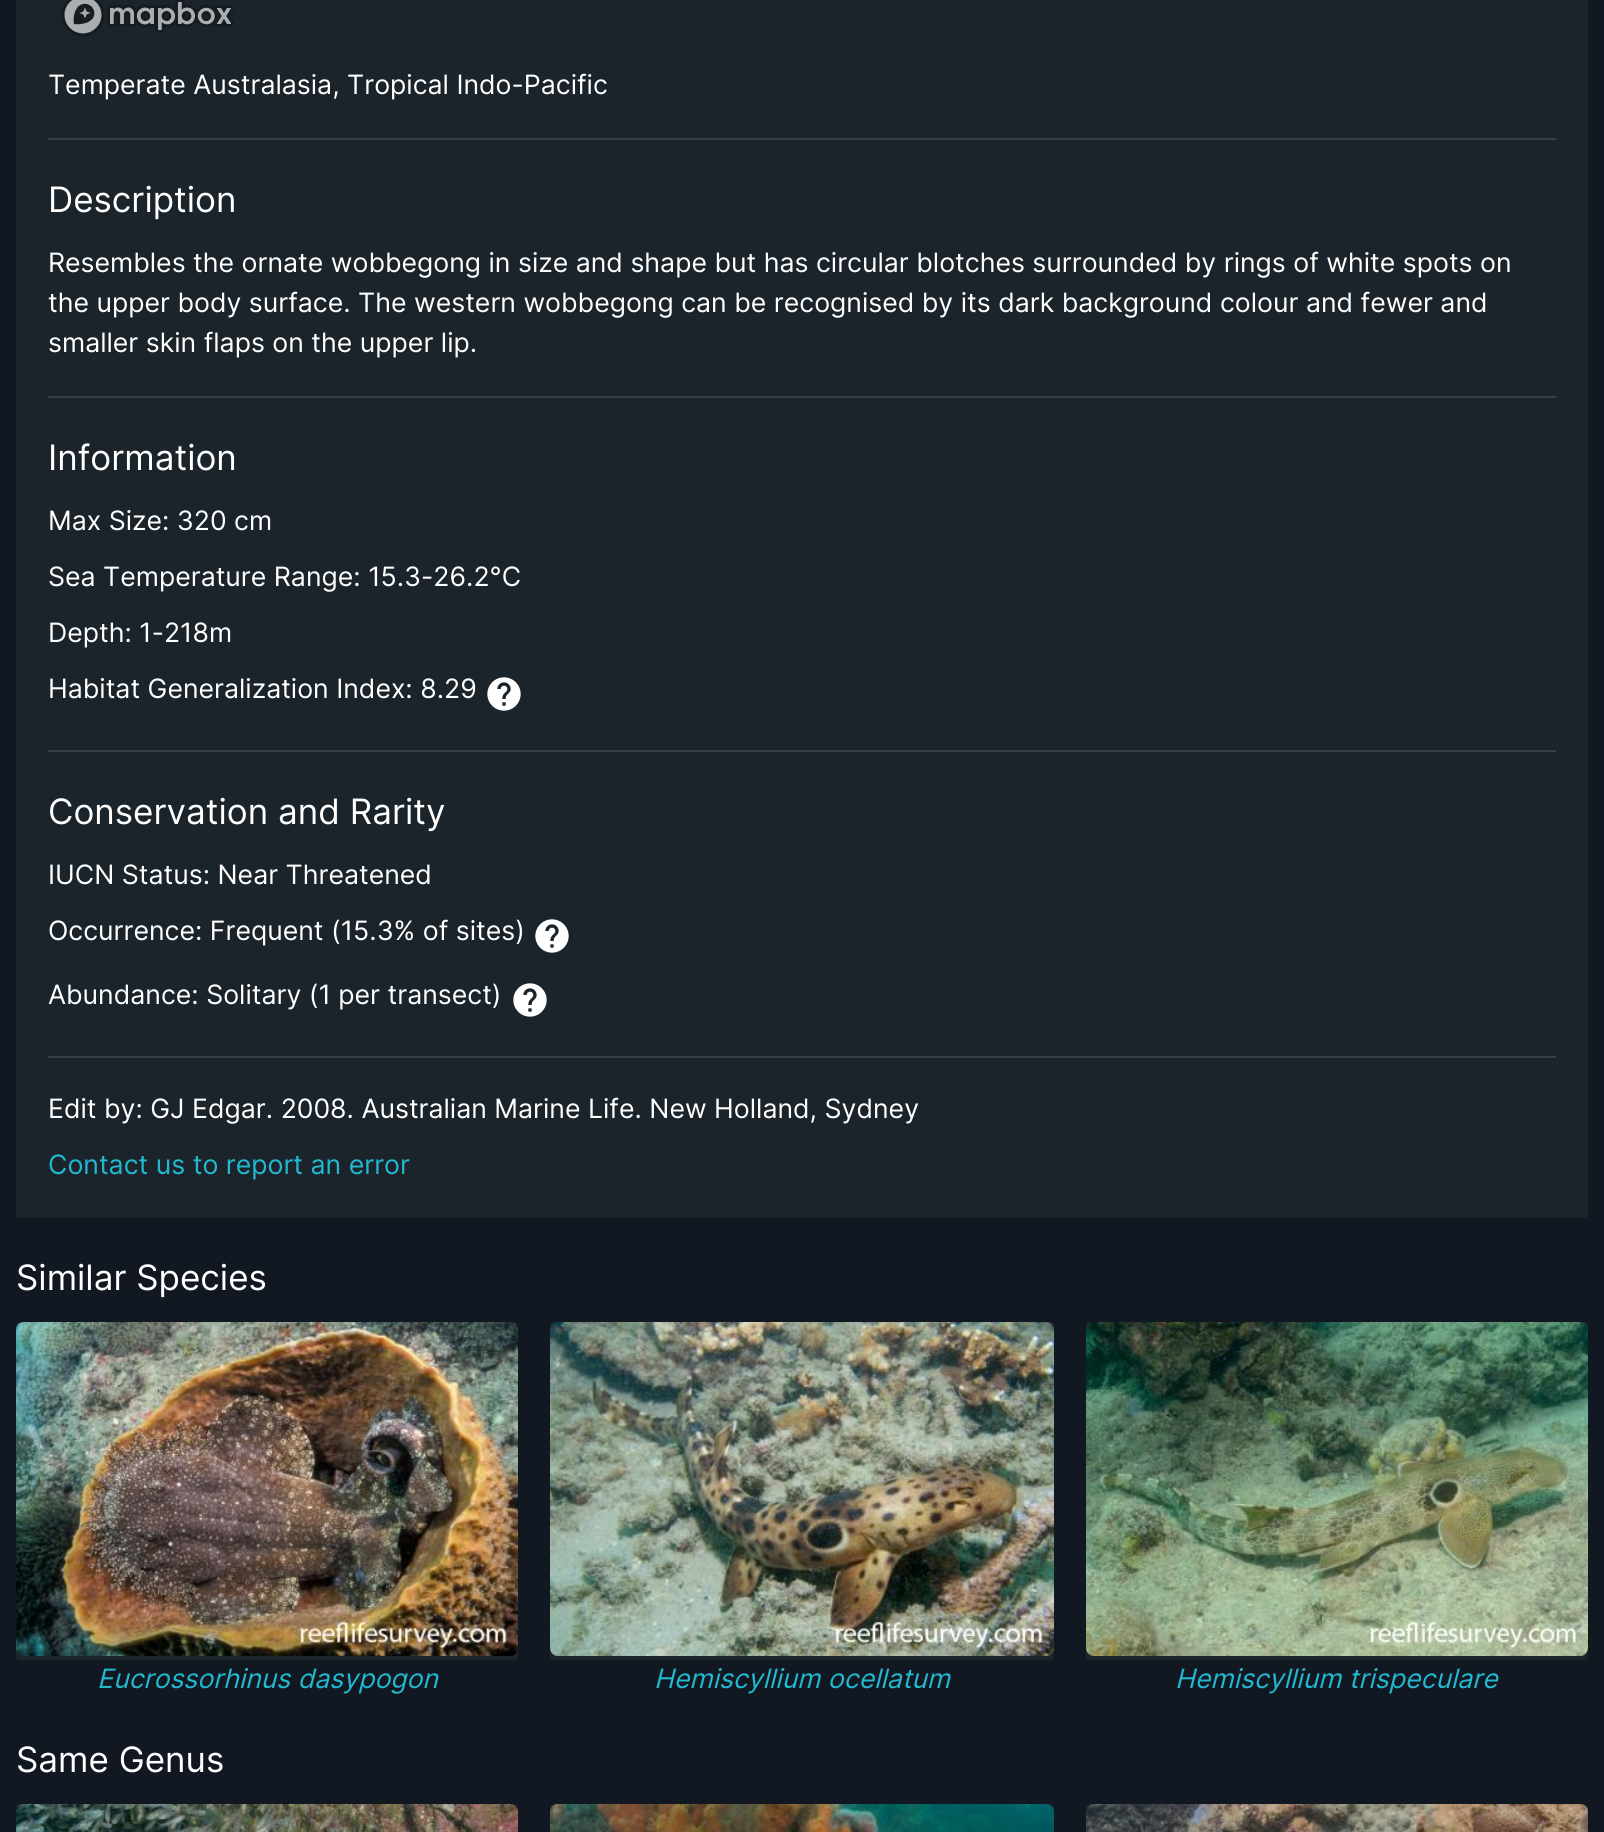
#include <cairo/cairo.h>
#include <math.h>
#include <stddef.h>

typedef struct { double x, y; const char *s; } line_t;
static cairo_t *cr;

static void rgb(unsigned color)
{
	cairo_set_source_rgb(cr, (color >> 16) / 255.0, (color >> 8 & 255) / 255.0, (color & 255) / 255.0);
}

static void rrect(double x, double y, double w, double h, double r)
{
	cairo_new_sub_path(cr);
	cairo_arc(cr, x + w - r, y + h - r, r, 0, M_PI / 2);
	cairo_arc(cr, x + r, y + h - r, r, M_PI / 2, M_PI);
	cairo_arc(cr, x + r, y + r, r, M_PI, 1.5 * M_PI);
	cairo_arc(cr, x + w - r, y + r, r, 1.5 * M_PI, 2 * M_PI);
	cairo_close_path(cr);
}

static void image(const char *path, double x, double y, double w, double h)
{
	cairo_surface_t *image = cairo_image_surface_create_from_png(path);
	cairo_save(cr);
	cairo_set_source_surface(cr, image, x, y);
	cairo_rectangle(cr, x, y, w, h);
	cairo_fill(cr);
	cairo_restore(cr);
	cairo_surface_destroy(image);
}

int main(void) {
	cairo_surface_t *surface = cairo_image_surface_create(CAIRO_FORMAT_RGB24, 1604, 1832);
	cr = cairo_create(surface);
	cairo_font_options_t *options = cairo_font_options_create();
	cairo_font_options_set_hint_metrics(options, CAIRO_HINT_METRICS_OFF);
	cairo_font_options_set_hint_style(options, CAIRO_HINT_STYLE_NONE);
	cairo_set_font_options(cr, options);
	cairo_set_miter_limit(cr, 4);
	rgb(0x111821);
	cairo_paint(cr);
	rgb(0x1c242b);
	rrect(16, -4, 1572, 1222, 4);
	cairo_fill(cr);
	image("img/1.png", 61, 0, 173, 37);
	rgb(0x373e44);
	cairo_rectangle(cr, 48, 138, 1508, 2);
	cairo_fill(cr);
	cairo_rectangle(cr, 48, 396, 1508, 2);
	cairo_fill(cr);
	image("img/2.png", 487, 677, 34, 34);
	cairo_rectangle(cr, 48, 750, 1508, 2);
	cairo_fill(cr);
	image("img/2.png", 535, 919, 34, 34);
	image("img/2.png", 513, 983, 34, 34);
	cairo_rectangle(cr, 48, 1056, 1508, 2);
	cairo_fill(cr);
	rgb(0x1d242c);
	rrect(16, 1322, 502, 338, 4);
	cairo_fill(cr);
	image("img/3.png", 16, 1322, 502, 334);
	rrect(550, 1322, 504, 338, 4);
	cairo_fill(cr);
	image("img/4.png", 550, 1322, 504, 334);
	rrect(1086, 1322, 502, 338, 4);
	cairo_fill(cr);
	image("img/5.png", 1086, 1322, 502, 334);
	rrect(16, 1804, 502, 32, 4);
	cairo_fill(cr);
	image("img/6.png", 16, 1804, 502, 28);
	rrect(550, 1804, 504, 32, 4);
	cairo_fill(cr);
	image("img/7.png", 550, 1804, 504, 28);
	rrect(1086, 1804, 502, 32, 4);
	cairo_fill(cr);
	image("img/8.png", 1086, 1804, 502, 28);
	cairo_select_font_face(cr, "Inter", CAIRO_FONT_SLANT_NORMAL, CAIRO_FONT_WEIGHT_NORMAL);
	cairo_set_font_size(cr, 26.67);
	rgb(0xffffff);
	cairo_move_to(cr, 48, 94);
	cairo_show_text(cr, "Temperate Australasia, Tropical Indo-Pacific");
	cairo_set_font_size(cr, 35);
	cairo_move_to(cr, 48, 212);
	cairo_show_text(cr, "Description");
	cairo_set_font_size(cr, 26.67);
	{
		static const line_t items[] = {
			{48, 272, "Resembles the ornate wobbegong in size and shape but has circular blotches surrounded by rings of white spots on"},
			{48, 312, "the upper body surface. The western wobbegong can be recognised by its dark background colour and fewer and"},
			{48, 352, "smaller skin flaps on the upper lip."},
		};
		for (size_t i = 0; i < sizeof items / sizeof *items; i++) {
			cairo_move_to(cr, items[i].x, items[i].y);
			cairo_show_text(cr, items[i].s);
		}
	}
	cairo_set_font_size(cr, 35);
	cairo_move_to(cr, 48, 470);
	cairo_show_text(cr, "Information");
	cairo_set_font_size(cr, 26.67);
	{
		static const line_t items[] = {
			{48, 530, "Max Size: 320 cm"},
			{48, 586, "Sea Temperature Range: 15.3-26.2°C"},
			{48, 642, "Depth: 1-218m"},
			{48, 698, "Habitat Generalization Index: 8.29"},
		};
		for (size_t i = 0; i < sizeof items / sizeof *items; i++) {
			cairo_move_to(cr, items[i].x, items[i].y);
			cairo_show_text(cr, items[i].s);
		}
	}
	cairo_set_font_size(cr, 35);
	cairo_move_to(cr, 48, 824);
	cairo_show_text(cr, "Conservation and Rarity");
	cairo_set_font_size(cr, 26.67);
	{
		static const line_t items[] = {
			{48, 884, "IUCN Status: Near Threatened"},
			{48, 940, "Occurrence: Frequent (15.3% of sites)"},
			{48, 1004, "Abundance: Solitary (1 per transect)"},
			{48, 1118, "Edit by: GJ Edgar. 2008. Australian Marine Life. New Holland, Sydney"},
		};
		for (size_t i = 0; i < sizeof items / sizeof *items; i++) {
			cairo_move_to(cr, items[i].x, items[i].y);
			cairo_show_text(cr, items[i].s);
		}
	}
	rgb(0x22b8cf);
	cairo_move_to(cr, 48, 1174);
	cairo_show_text(cr, "Contact us to report an error");
	cairo_set_font_size(cr, 35);
	rgb(0xffffff);
	cairo_move_to(cr, 16, 1290);
	cairo_show_text(cr, "Similar Species");
	cairo_select_font_face(cr, "Inter", CAIRO_FONT_SLANT_ITALIC, CAIRO_FONT_WEIGHT_NORMAL);
	cairo_set_font_size(cr, 26.67);
	rgb(0x22b8cf);
	{
		static const line_t items[] = {
			{97, 1688, "Eucrossorhinus dasypogon"},
			{654, 1688, "Hemiscyllium ocellatum"},
			{1175, 1688, "Hemiscyllium trispeculare"},
		};
		for (size_t i = 0; i < sizeof items / sizeof *items; i++) {
			cairo_move_to(cr, items[i].x, items[i].y);
			cairo_show_text(cr, items[i].s);
		}
	}
	cairo_select_font_face(cr, "Inter", CAIRO_FONT_SLANT_NORMAL, CAIRO_FONT_WEIGHT_NORMAL);
	cairo_set_font_size(cr, 35);
	rgb(0xffffff);
	cairo_move_to(cr, 16, 1772);
	cairo_show_text(cr, "Same Genus");
	cairo_surface_write_to_png(surface, "page.png");
	cairo_font_options_destroy(options);
	cairo_destroy(cr);
	cairo_surface_destroy(surface);
	return 0;
}
